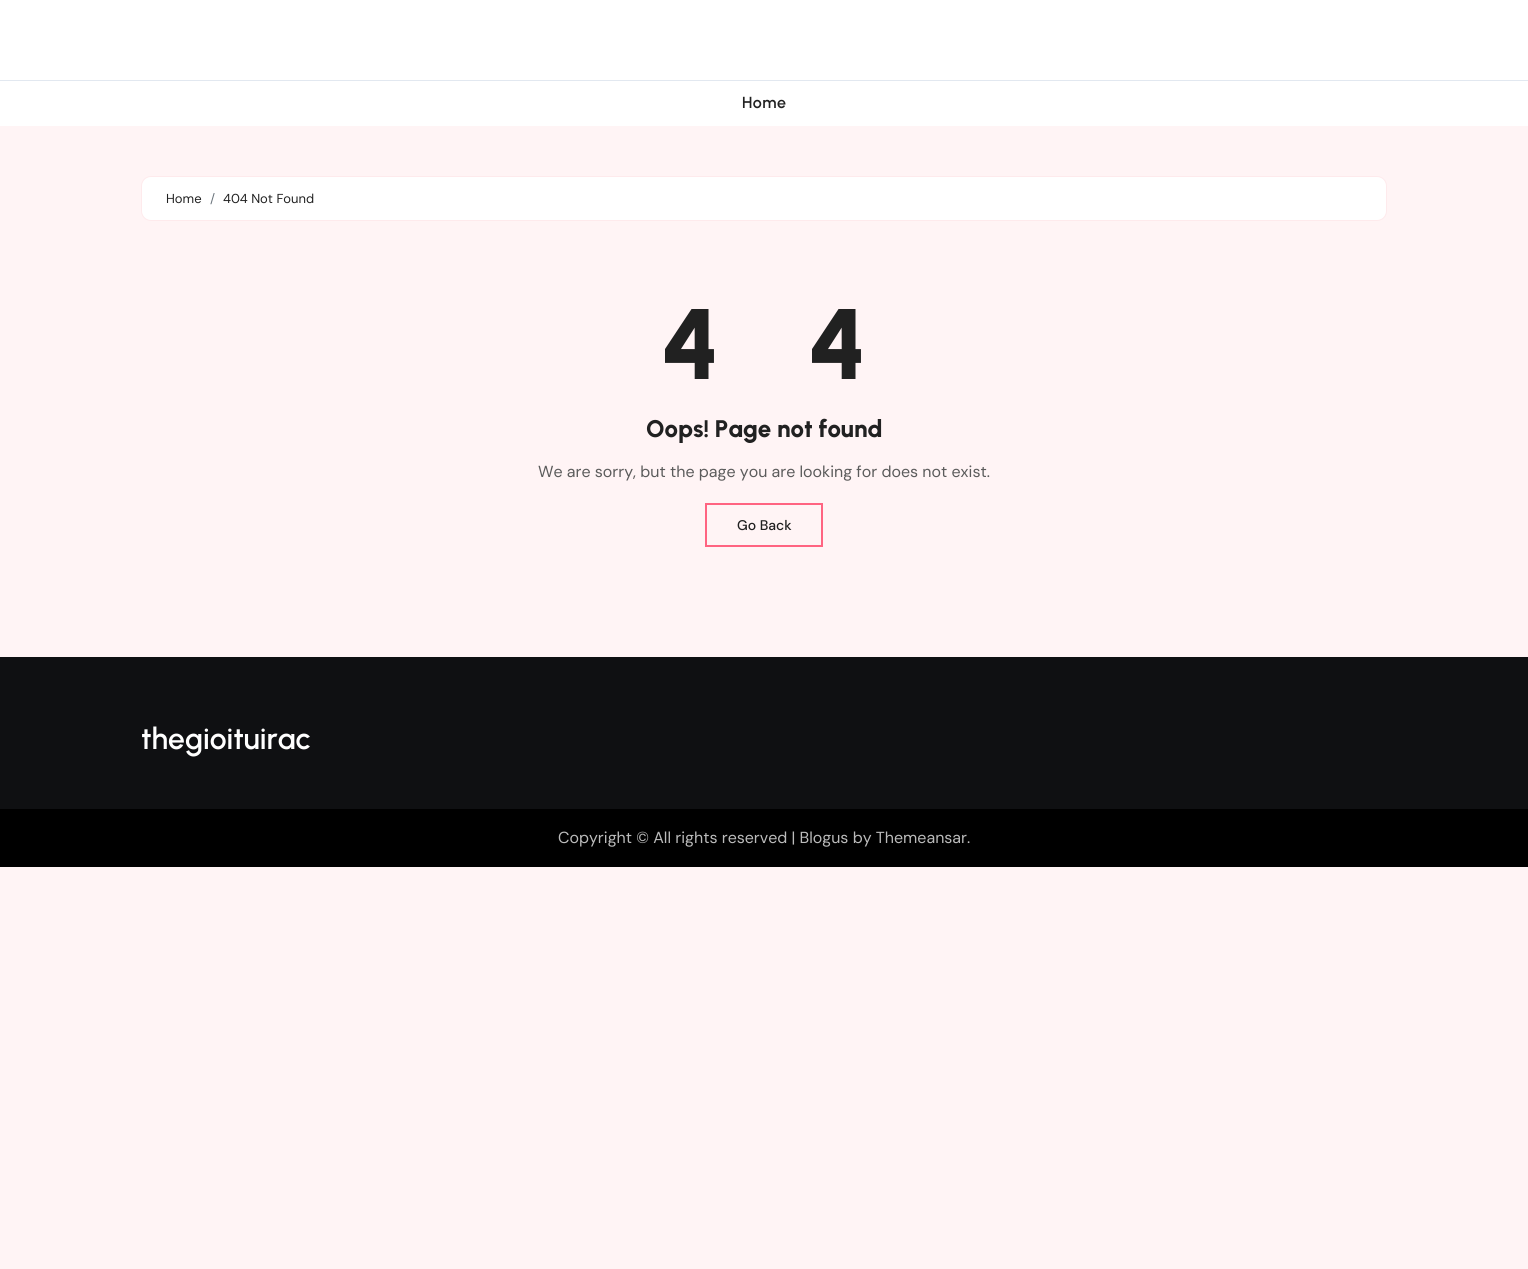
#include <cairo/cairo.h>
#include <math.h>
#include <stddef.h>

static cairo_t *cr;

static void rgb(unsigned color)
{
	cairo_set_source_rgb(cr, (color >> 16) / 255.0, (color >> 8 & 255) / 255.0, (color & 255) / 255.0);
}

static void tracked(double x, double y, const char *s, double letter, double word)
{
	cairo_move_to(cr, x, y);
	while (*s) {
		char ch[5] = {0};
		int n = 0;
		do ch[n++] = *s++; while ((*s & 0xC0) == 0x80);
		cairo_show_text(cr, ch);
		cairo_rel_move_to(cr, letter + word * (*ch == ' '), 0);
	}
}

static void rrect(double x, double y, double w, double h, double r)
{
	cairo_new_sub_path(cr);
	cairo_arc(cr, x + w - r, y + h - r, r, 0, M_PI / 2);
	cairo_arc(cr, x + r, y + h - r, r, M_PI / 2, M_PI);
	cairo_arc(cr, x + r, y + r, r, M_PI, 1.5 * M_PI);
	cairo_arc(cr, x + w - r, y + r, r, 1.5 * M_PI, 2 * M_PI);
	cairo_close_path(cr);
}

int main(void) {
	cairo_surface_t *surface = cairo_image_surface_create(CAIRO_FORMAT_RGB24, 1528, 1269);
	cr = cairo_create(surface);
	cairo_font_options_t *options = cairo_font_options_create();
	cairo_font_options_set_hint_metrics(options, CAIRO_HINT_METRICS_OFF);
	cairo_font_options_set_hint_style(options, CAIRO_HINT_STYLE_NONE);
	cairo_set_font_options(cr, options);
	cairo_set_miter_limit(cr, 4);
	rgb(0xfff4f5);
	cairo_paint(cr);
	rgb(0xffffff);
	cairo_rectangle(cr, 0, 0, 1528, 126);
	cairo_fill(cr);
	rgb(0xe2e8f0);
	cairo_rectangle(cr, 0, 80, 1528, 1);
	cairo_fill(cr);
	rgb(0xffffff);
	rrect(141.5, 176.5, 1245, 44, 9.5);
	cairo_fill_preserve(cr);
	rgb(0xfeeaec);
	cairo_set_line_width(cr, 1);
	cairo_stroke(cr);
	cairo_rectangle(cr, 706, 504, 116, 42);
	rgb(0xff6481);
	cairo_set_line_width(cr, 2);
	cairo_stroke(cr);
	rgb(0x0f1012);
	cairo_rectangle(cr, 0, 657, 1528, 152);
	cairo_fill(cr);
	rgb(0x000000);
	cairo_rectangle(cr, 0, 809, 1528, 58);
	cairo_fill(cr);
	cairo_select_font_face(cr, "Urbanist SemiBold", CAIRO_FONT_SLANT_NORMAL, CAIRO_FONT_WEIGHT_NORMAL);
	cairo_set_font_size(cr, 16);
	rgb(0x212121);
	tracked(742, 108, "Home", 0.5, 0);
	cairo_select_font_face(cr, "DM Sans", CAIRO_FONT_SLANT_NORMAL, CAIRO_FONT_WEIGHT_NORMAL);
	cairo_set_font_size(cr, 13);
	cairo_move_to(cr, 166, 203);
	cairo_show_text(cr, "Home");
	rgb(0x6c757d);
	cairo_move_to(cr, 210, 203);
	cairo_show_text(cr, "/");
	rgb(0x212121);
	cairo_move_to(cr, 223, 203);
	cairo_show_text(cr, "404 Not Found");
	cairo_select_font_face(cr, "Urbanist ExtraBold", CAIRO_FONT_SLANT_NORMAL, CAIRO_FONT_WEIGHT_NORMAL);
	cairo_set_font_size(cr, 100);
	cairo_move_to(cr, 661, 379);
	cairo_show_text(cr, "4");
	cairo_move_to(cr, 808, 379);
	cairo_show_text(cr, "4");
	cairo_set_font_size(cr, 24);
	cairo_move_to(cr, 646, 437);
	cairo_show_text(cr, "Oops! Page not found");
	cairo_select_font_face(cr, "DM Sans", CAIRO_FONT_SLANT_NORMAL, CAIRO_FONT_WEIGHT_NORMAL);
	cairo_set_font_size(cr, 16);
	rgb(0x5b5b5b);
	cairo_move_to(cr, 538, 477);
	cairo_show_text(cr, "We are sorry, but the page you are looking for does not exist.");
	cairo_select_font_face(cr, "DM Sans Medium", CAIRO_FONT_SLANT_NORMAL, CAIRO_FONT_WEIGHT_NORMAL);
	cairo_set_font_size(cr, 14);
	rgb(0x212121);
	cairo_move_to(cr, 737, 530);
	cairo_show_text(cr, "Go Back");
	cairo_select_font_face(cr, "Urbanist SemiBold", CAIRO_FONT_SLANT_NORMAL, CAIRO_FONT_WEIGHT_NORMAL);
	cairo_set_font_size(cr, 30);
	rgb(0xffffff);
	cairo_move_to(cr, 141, 749);
	cairo_show_text(cr, "thegioituirac");
	cairo_select_font_face(cr, "DM Sans", CAIRO_FONT_SLANT_NORMAL, CAIRO_FONT_WEIGHT_NORMAL);
	cairo_set_font_size(cr, 16);
	rgb(0xbbbbbb);
	cairo_move_to(cr, 558, 843);
	cairo_show_text(cr, "Copyright © All rights reserved | Blogus by Themeansar.");
	cairo_surface_write_to_png(surface, "page.png");
	cairo_font_options_destroy(options);
	cairo_destroy(cr);
	cairo_surface_destroy(surface);
	return 0;
}
